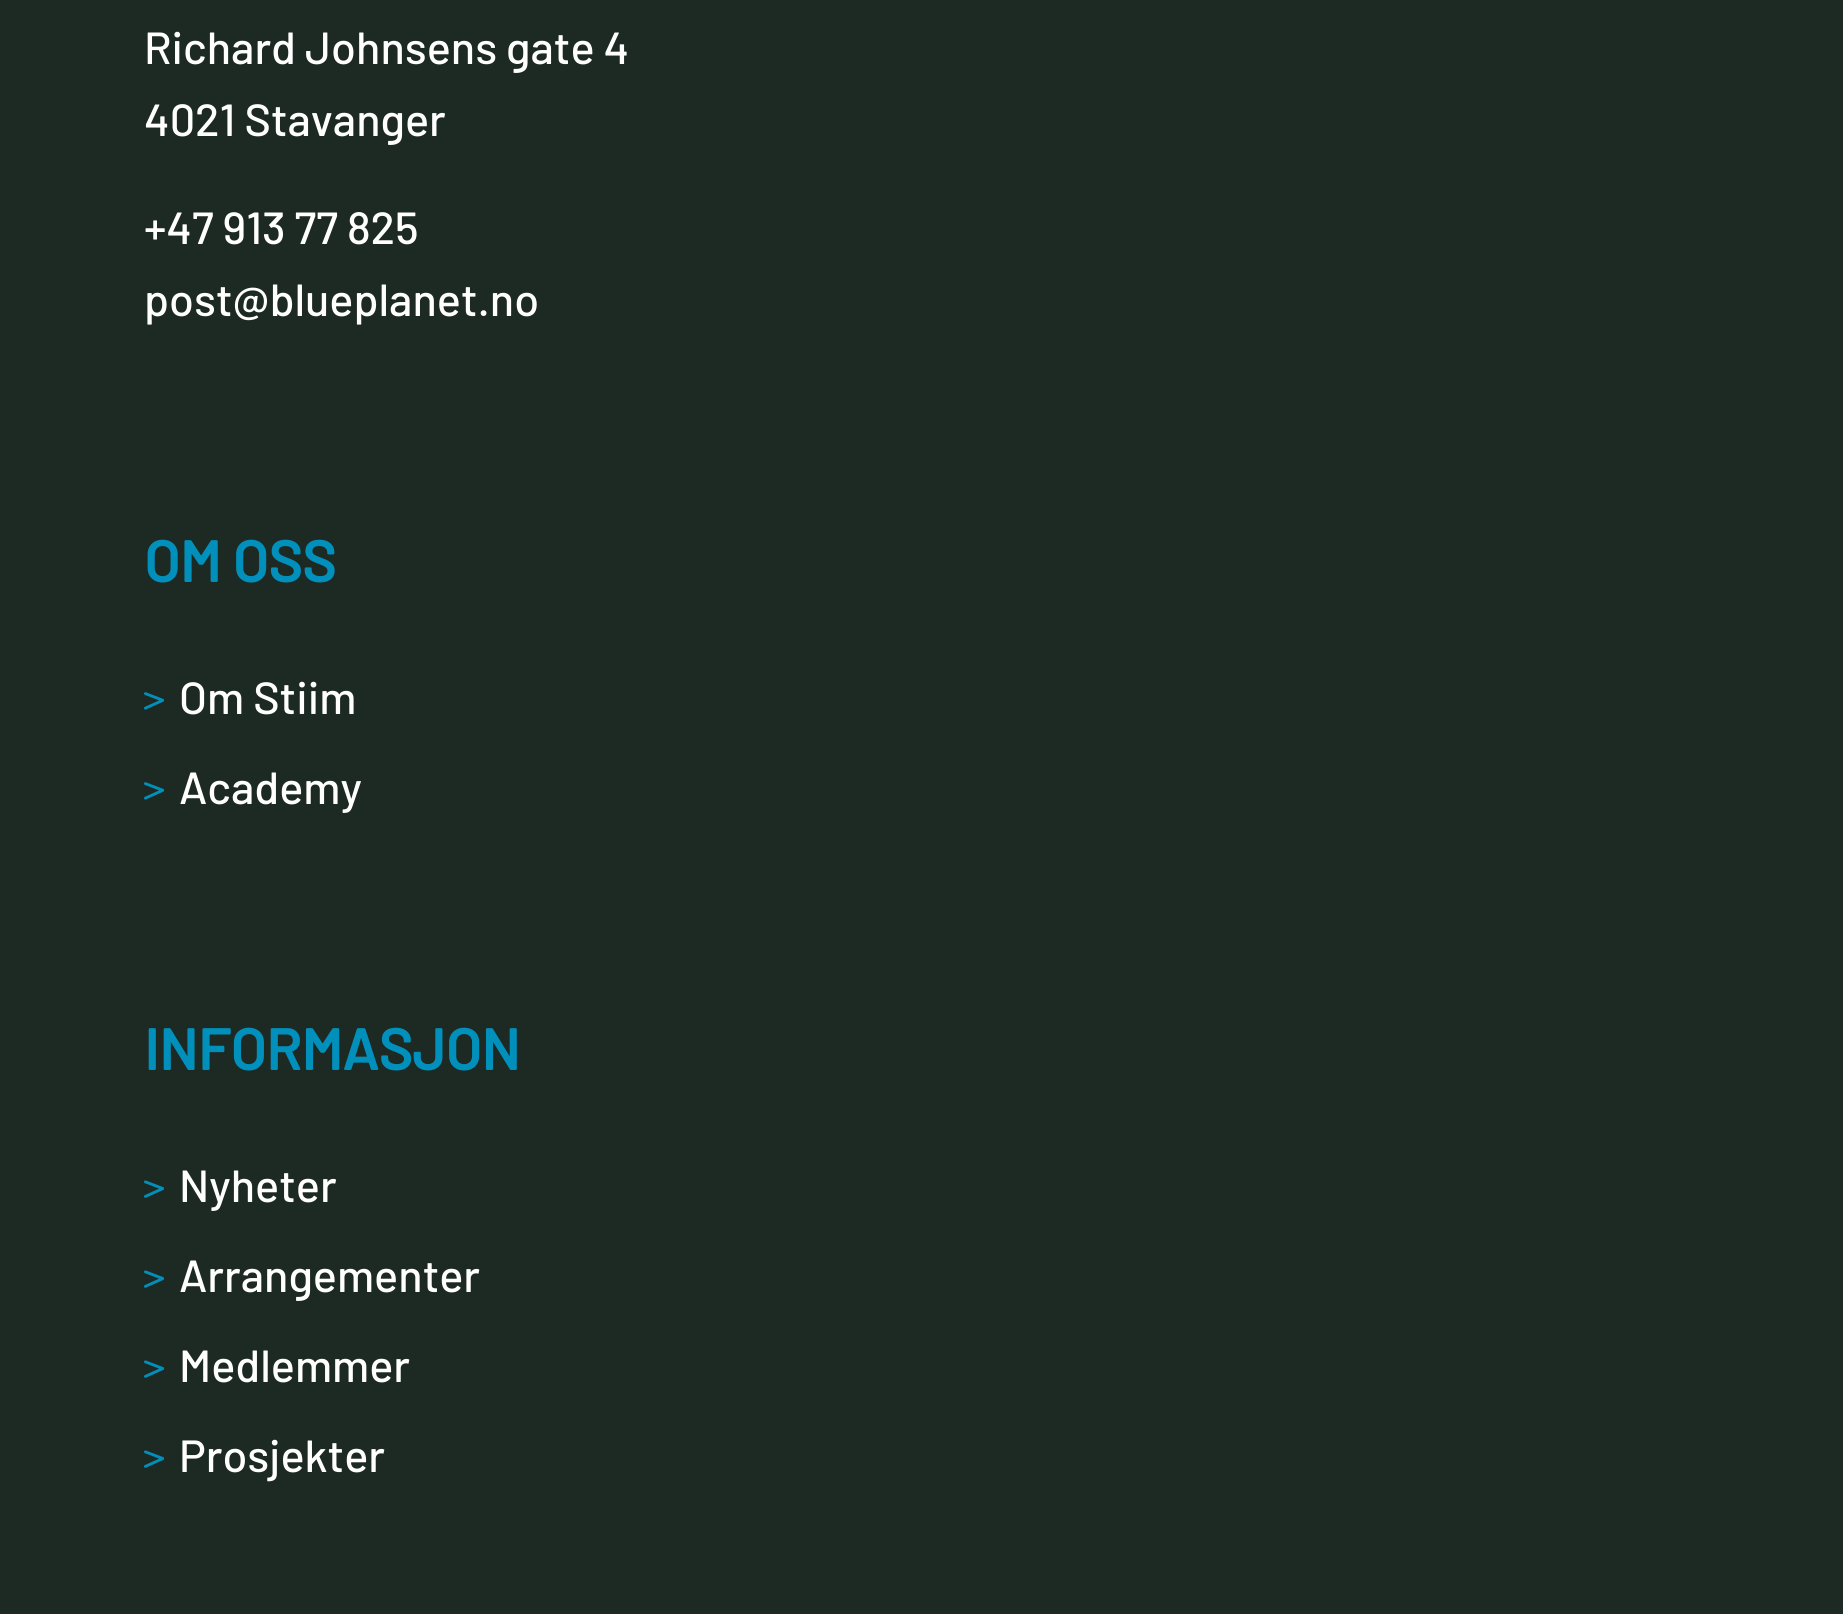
#include <cairo/cairo.h>
#include <math.h>
#include <stddef.h>

typedef struct { double x, y; const char *s; } line_t;
static cairo_t *cr;

static void rgb(unsigned color)
{
	cairo_set_source_rgb(cr, (color >> 16) / 255.0, (color >> 8 & 255) / 255.0, (color & 255) / 255.0);
}

static void image(const char *path, double x, double y, double w, double h)
{
	cairo_surface_t *image = cairo_image_surface_create_from_png(path);
	cairo_save(cr);
	cairo_set_source_surface(cr, image, x, y);
	cairo_rectangle(cr, x, y, w, h);
	cairo_fill(cr);
	cairo_restore(cr);
	cairo_surface_destroy(image);
}

int main(void) {
	cairo_surface_t *surface = cairo_image_surface_create(CAIRO_FORMAT_RGB24, 1843, 1614);
	cr = cairo_create(surface);
	cairo_font_options_t *options = cairo_font_options_create();
	cairo_font_options_set_hint_metrics(options, CAIRO_HINT_METRICS_OFF);
	cairo_font_options_set_hint_style(options, CAIRO_HINT_STYLE_NONE);
	cairo_set_font_options(cr, options);
	cairo_set_miter_limit(cr, 4);
	rgb(0x1d2a23);
	cairo_paint(cr);
	image("img/1.png", 144, 692, 20, 18);
	image("img/1.png", 144, 782, 20, 18);
	image("img/2.png", 144, 1180, 20, 18);
	image("img/2.png", 144, 1270, 20, 18);
	image("img/2.png", 144, 1360, 20, 18);
	image("img/2.png", 144, 1450, 20, 18);
	cairo_select_font_face(cr, "Barlow Medium", CAIRO_FONT_SLANT_NORMAL, CAIRO_FONT_WEIGHT_NORMAL);
	cairo_set_font_size(cr, 45);
	rgb(0xffffff);
	{
		static const line_t items[] = {
			{144, 64, "Richard Johnsens gate 4"},
			{144, 136, "4021 Stavanger"},
			{144, 244, "+47 913 77 825"},
			{144, 316, "post@blueplanet.no"},
		};
		for (size_t i = 0; i < sizeof items / sizeof *items; i++) {
			cairo_move_to(cr, items[i].x, items[i].y);
			cairo_show_text(cr, items[i].s);
		}
	}
	cairo_select_font_face(cr, "Barlow", CAIRO_FONT_SLANT_NORMAL, CAIRO_FONT_WEIGHT_BOLD);
	cairo_set_font_size(cr, 57.5);
	rgb(0x0190bc);
	cairo_move_to(cr, 144, 582);
	cairo_show_text(cr, "OM OSS");
	cairo_select_font_face(cr, "Barlow Medium", CAIRO_FONT_SLANT_NORMAL, CAIRO_FONT_WEIGHT_NORMAL);
	cairo_set_font_size(cr, 45);
	rgb(0xffffff);
	cairo_move_to(cr, 179, 714);
	cairo_show_text(cr, "Om Stiim");
	cairo_move_to(cr, 179, 804);
	cairo_show_text(cr, "Academy");
	cairo_select_font_face(cr, "Barlow", CAIRO_FONT_SLANT_NORMAL, CAIRO_FONT_WEIGHT_BOLD);
	cairo_set_font_size(cr, 57.5);
	rgb(0x0190bc);
	cairo_move_to(cr, 144, 1070);
	cairo_show_text(cr, "INFORMASJON");
	cairo_select_font_face(cr, "Barlow Medium", CAIRO_FONT_SLANT_NORMAL, CAIRO_FONT_WEIGHT_NORMAL);
	cairo_set_font_size(cr, 45);
	rgb(0xffffff);
	{
		static const line_t items[] = {
			{179, 1202, "Nyheter"},
			{179, 1292, "Arrangementer"},
			{179, 1382, "Medlemmer"},
			{179, 1472, "Prosjekter"},
		};
		for (size_t i = 0; i < sizeof items / sizeof *items; i++) {
			cairo_move_to(cr, items[i].x, items[i].y);
			cairo_show_text(cr, items[i].s);
		}
	}
	cairo_surface_write_to_png(surface, "page.png");
	cairo_font_options_destroy(options);
	cairo_destroy(cr);
	cairo_surface_destroy(surface);
	return 0;
}
